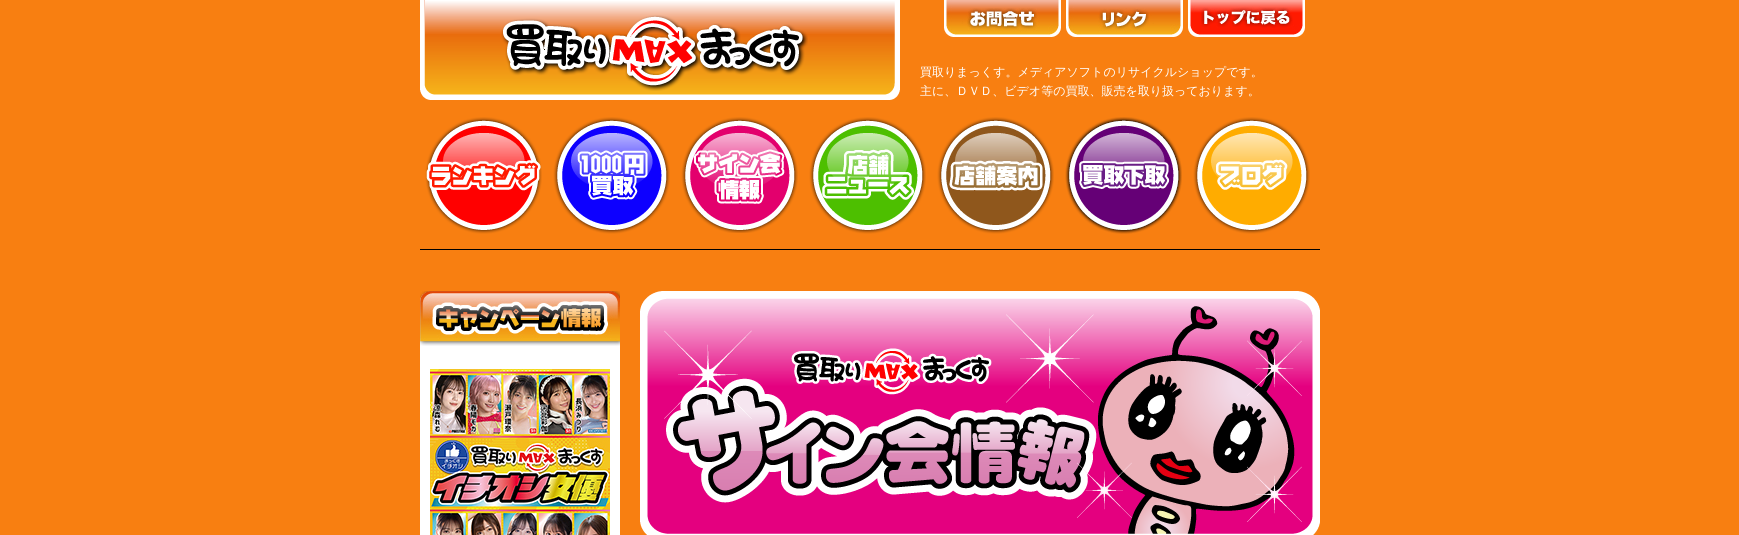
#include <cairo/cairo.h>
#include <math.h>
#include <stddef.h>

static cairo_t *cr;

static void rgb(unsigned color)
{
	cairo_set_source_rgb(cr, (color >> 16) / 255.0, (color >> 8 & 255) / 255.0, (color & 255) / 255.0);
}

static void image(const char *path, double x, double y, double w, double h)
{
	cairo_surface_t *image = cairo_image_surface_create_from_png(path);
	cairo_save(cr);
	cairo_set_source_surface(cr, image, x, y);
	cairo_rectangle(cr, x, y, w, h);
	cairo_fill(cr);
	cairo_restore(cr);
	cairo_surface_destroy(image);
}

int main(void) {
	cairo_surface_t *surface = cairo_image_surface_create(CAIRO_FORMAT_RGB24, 1739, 535);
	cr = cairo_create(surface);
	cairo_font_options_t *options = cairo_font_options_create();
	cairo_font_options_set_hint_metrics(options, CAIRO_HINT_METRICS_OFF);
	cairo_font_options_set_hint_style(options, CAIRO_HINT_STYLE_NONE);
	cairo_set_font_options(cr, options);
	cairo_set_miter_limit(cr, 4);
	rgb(0xf87f11);
	cairo_paint(cr);
	image("img/1.png", 420, 0, 480, 100);
	image("img/2.png", 944, 0, 117, 37);
	image("img/3.png", 1066, 0, 117, 37);
	image("img/4.png", 1188, 0, 117, 37);
	image("img/5.png", 425, 117, 117, 117);
	image("img/6.png", 553, 117, 117, 117);
	image("img/7.png", 681, 117, 117, 116);
	image("img/8.png", 809, 117, 117, 117);
	image("img/9.png", 937, 117, 117, 117);
	image("img/10.png", 1065, 117, 117, 117);
	image("img/11.png", 1193, 117, 117, 117);
	rgb(0x000000);
	cairo_rectangle(cr, 420, 249, 900, 1);
	cairo_fill(cr);
	rgb(0xffffff);
	cairo_rectangle(cr, 420, 346, 200, 189);
	cairo_fill(cr);
	image("img/12.png", 420, 291, 200, 55);
	image("img/13.png", 430, 369, 180, 166);
	image("img/14.png", 640, 291, 680, 244);
	cairo_select_font_face(cr, "WenQuanYi Zen Hei Medium", CAIRO_FONT_SLANT_NORMAL, CAIRO_FONT_WEIGHT_NORMAL);
	cairo_set_font_size(cr, 12);
	cairo_move_to(cr, 920, 76);
	cairo_show_text(cr, "買取りまっくす。メディアソフトのリサイクルショップです。");
	cairo_move_to(cr, 920, 95);
	cairo_show_text(cr, "主に、ＤＶＤ、ビデオ等の買取、販売を取り扱っております。");
	cairo_surface_write_to_png(surface, "page.png");
	cairo_font_options_destroy(options);
	cairo_destroy(cr);
	cairo_surface_destroy(surface);
	return 0;
}
